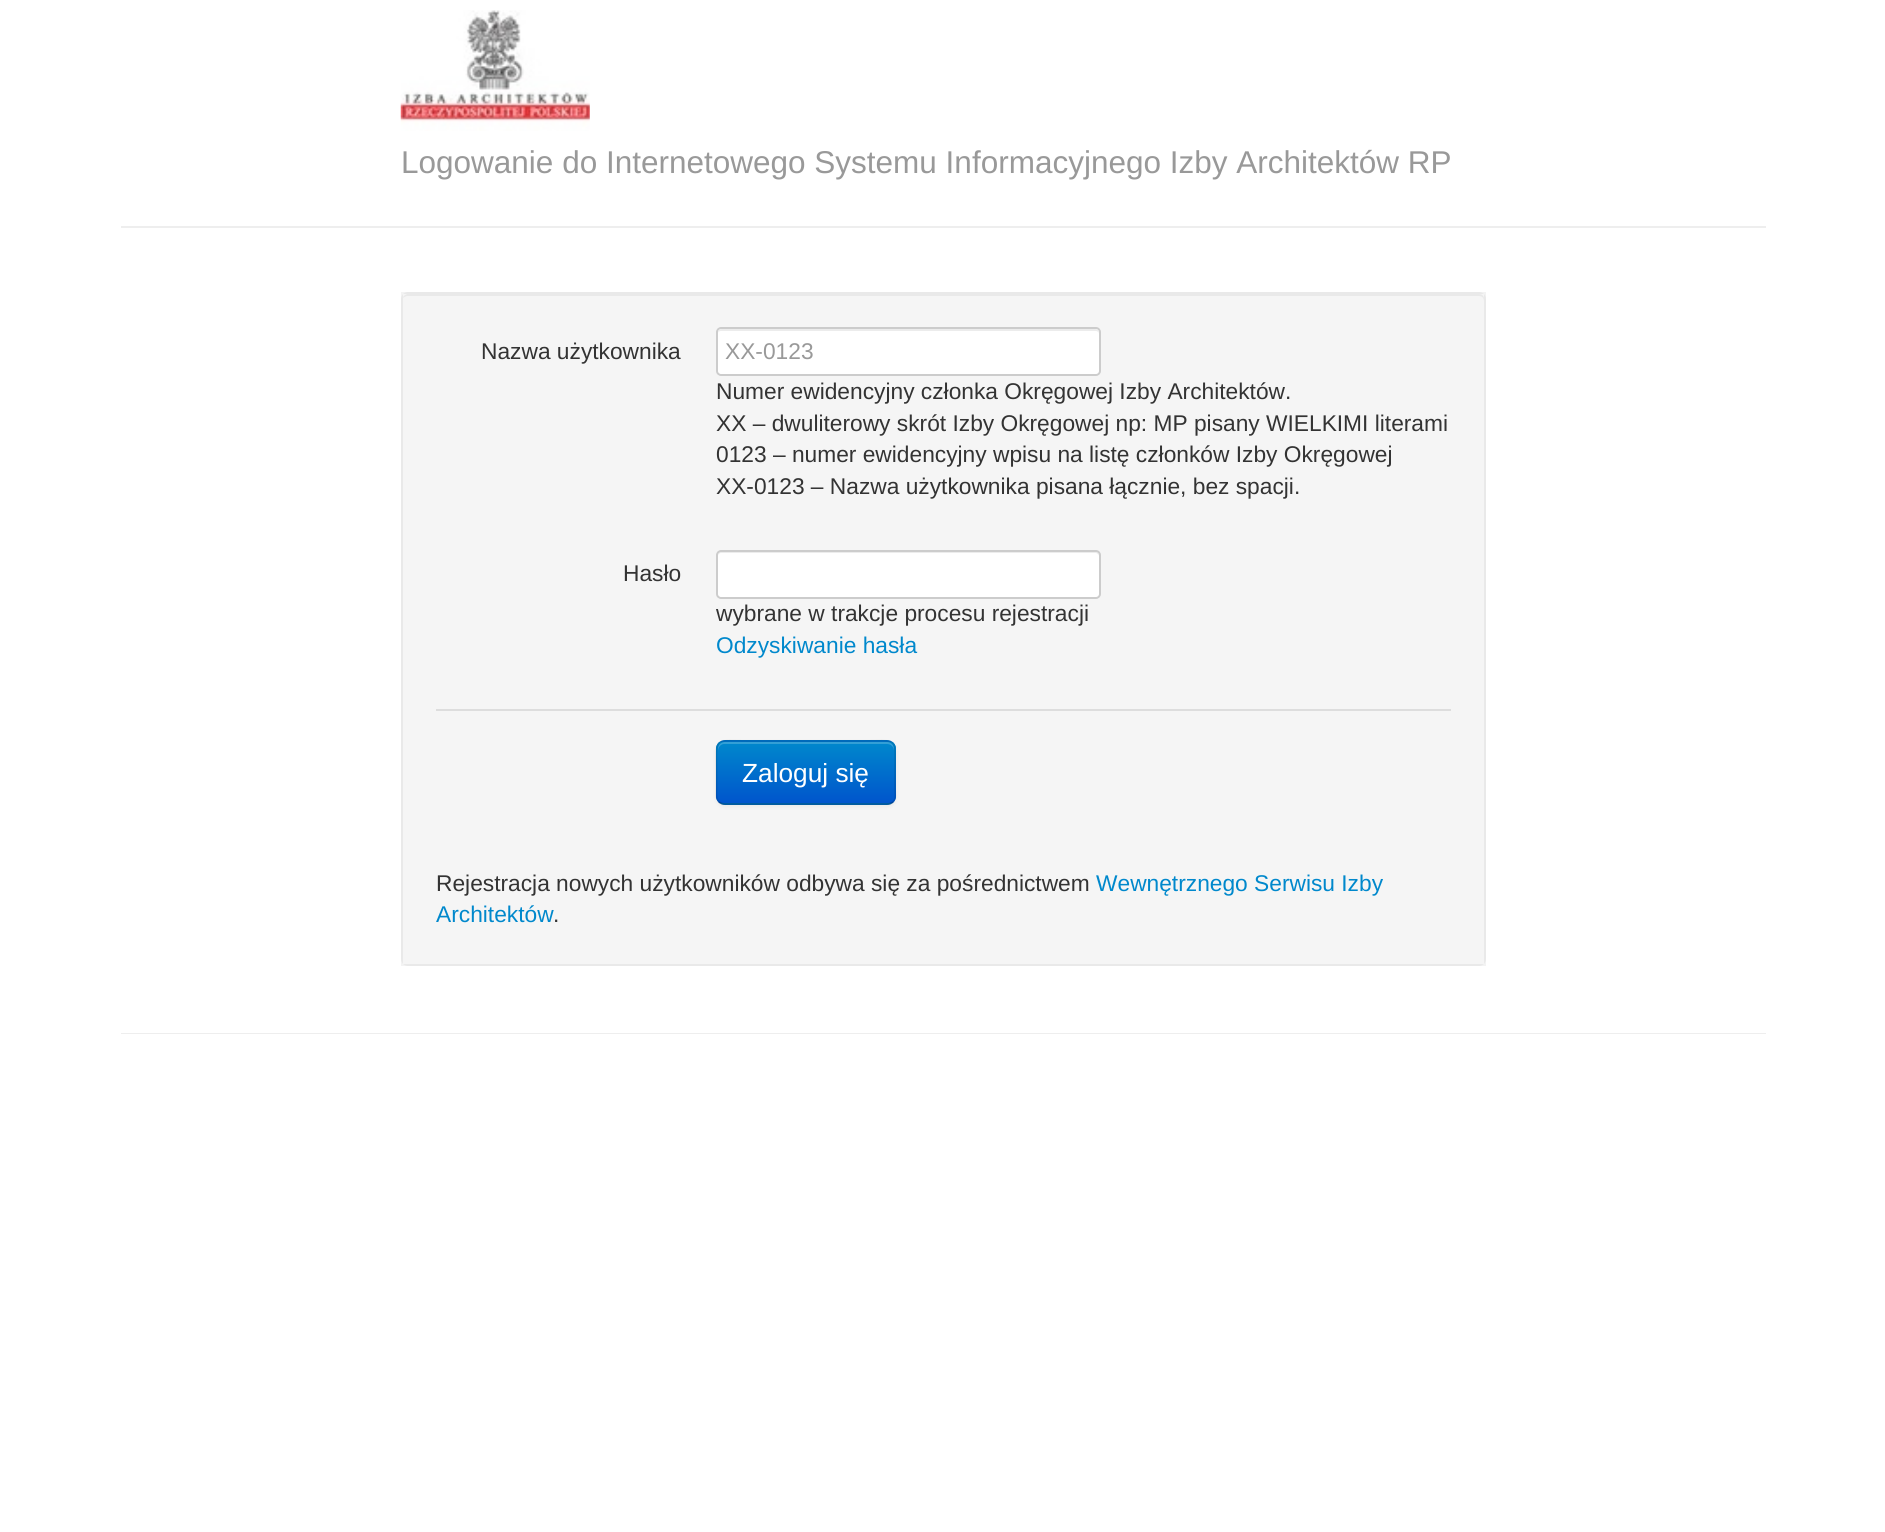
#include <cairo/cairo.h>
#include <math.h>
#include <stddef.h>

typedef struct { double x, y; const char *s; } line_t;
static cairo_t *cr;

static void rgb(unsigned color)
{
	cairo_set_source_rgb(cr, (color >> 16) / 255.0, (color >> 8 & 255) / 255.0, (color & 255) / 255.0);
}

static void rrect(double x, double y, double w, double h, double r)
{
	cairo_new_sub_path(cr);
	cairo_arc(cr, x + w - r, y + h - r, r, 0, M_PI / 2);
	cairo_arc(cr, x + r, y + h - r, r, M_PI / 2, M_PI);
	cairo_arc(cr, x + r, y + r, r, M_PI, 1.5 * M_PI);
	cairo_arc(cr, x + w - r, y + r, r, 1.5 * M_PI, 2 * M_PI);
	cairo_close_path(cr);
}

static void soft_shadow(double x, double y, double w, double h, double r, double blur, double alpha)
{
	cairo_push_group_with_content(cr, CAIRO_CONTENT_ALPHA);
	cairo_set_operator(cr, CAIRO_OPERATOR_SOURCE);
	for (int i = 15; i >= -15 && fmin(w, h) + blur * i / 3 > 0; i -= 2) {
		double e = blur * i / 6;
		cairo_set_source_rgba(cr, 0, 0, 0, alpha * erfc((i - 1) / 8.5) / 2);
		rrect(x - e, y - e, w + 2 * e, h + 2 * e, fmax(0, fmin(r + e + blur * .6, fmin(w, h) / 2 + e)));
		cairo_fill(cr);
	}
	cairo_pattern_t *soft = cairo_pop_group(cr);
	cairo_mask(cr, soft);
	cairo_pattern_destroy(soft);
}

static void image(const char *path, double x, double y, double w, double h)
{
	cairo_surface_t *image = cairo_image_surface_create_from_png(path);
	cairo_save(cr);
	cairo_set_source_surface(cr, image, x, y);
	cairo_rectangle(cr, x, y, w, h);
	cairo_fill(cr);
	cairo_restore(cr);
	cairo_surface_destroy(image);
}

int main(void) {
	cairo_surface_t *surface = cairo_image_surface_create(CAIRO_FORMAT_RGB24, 1885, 1532);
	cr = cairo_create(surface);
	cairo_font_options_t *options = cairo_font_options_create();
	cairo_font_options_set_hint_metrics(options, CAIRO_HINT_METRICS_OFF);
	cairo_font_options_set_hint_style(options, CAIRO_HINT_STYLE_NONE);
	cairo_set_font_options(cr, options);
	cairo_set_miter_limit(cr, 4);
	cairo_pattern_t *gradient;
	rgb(0xffffff);
	cairo_paint(cr);
	image("img/1.png", 400, 10, 190, 121);
	rgb(0xeeeeee);
	cairo_rectangle(cr, 121, 226, 1645, 2);
	cairo_fill(cr);
	rgb(0xf5f5f5);
	rrect(401, 292, 1085, 674, 7);
	cairo_fill(cr);
	rgb(0xe9e9e9);
	cairo_new_path(cr);
	cairo_move_to(cr, 408, 296);
	cairo_line_to(cr, 1479, 296);
	cairo_curve_to(cr, 1482, 296, 1484, 298, 1484, 301);
	cairo_line_to(cr, 1484, 299);
	cairo_curve_to(cr, 1484, 296, 1482, 294, 1479, 294);
	cairo_line_to(cr, 408, 294);
	cairo_curve_to(cr, 406, 294, 403, 296, 403, 298);
	cairo_curve_to(cr, 404, 297, 406, 296, 408, 296);
	cairo_close_path(cr);
	cairo_fill(cr);
	cairo_rectangle(cr, 402, 293, 1083, 672);
	cairo_set_source_rgba(cr, 0, 0, 0, 0.05);
	cairo_stroke(cr);
	rgb(0xffffff);
	rrect(716, 327, 385, 49, 5);
	cairo_fill(cr);
	rgb(0xececec);
	cairo_new_path(cr);
	cairo_move_to(cr, 721, 331);
	cairo_line_to(cr, 1096, 331);
	cairo_curve_to(cr, 1097, 331, 1099, 332, 1099, 334);
	cairo_curve_to(cr, 1099, 331, 1098, 329, 1095, 329);
	cairo_line_to(cr, 722, 329);
	cairo_curve_to(cr, 719, 329, 718, 331, 718, 334);
	cairo_curve_to(cr, 718, 332, 719, 331, 721, 331);
	cairo_close_path(cr);
	cairo_fill(cr);
	rrect(717, 328, 383, 47, 4);
	rgb(0xcccccc);
	cairo_stroke(cr);
	rgb(0xffffff);
	rrect(716, 550, 385, 49, 5);
	cairo_fill(cr);
	rgb(0xececec);
	cairo_new_path(cr);
	cairo_move_to(cr, 721, 553);
	cairo_line_to(cr, 1096, 553);
	cairo_curve_to(cr, 1097, 553, 1099, 555, 1099, 556);
	cairo_curve_to(cr, 1099, 553, 1098, 551, 1095, 551);
	cairo_line_to(cr, 722, 551);
	cairo_curve_to(cr, 719, 551, 718, 553, 718, 556);
	cairo_curve_to(cr, 718, 555, 719, 553, 721, 553);
	cairo_close_path(cr);
	cairo_fill(cr);
	rrect(717, 551, 383, 47, 4);
	rgb(0xcccccc);
	cairo_stroke(cr);
	rgb(0xdddddd);
	cairo_rectangle(cr, 436, 709, 1015, 2);
	cairo_fill(cr);
	rgb(0x000000);
	soft_shadow(716, 742, 180, 65, 9, 2, 0.05);
	rgb(0x0074cc);
	rrect(716, 740, 180, 65, 9);
	cairo_fill(cr);
	cairo_save(cr);
	rrect(716, 740, 180, 65, 9);
	cairo_clip(cr);
	gradient = cairo_pattern_create_linear(806, 742, 806, 803);
	cairo_pattern_add_color_stop_rgba(gradient, 0, 0, 0.533, 0.8, 1);
	cairo_pattern_add_color_stop_rgba(gradient, 1, 0, 0.333, 0.8, 1);
	cairo_set_source(cr, gradient);
	cairo_pattern_destroy(gradient);
	cairo_rectangle(cr, 716, 742, 180, 61);
	cairo_fill(cr);
	cairo_restore(cr);
	cairo_set_source_rgba(cr, 1, 1, 1, 0.2);
	cairo_new_path(cr);
	cairo_move_to(cr, 724, 744);
	cairo_line_to(cr, 887, 744);
	cairo_curve_to(cr, 891, 744, 894, 747, 894, 751);
	cairo_line_to(cr, 894, 749);
	cairo_curve_to(cr, 894, 745, 891, 742, 887, 742);
	cairo_line_to(cr, 725, 742);
	cairo_curve_to(cr, 721, 742, 718, 745, 718, 749);
	cairo_line_to(cr, 718, 751);
	cairo_curve_to(cr, 718, 747, 721, 744, 724, 744);
	cairo_close_path(cr);
	cairo_fill(cr);
	cairo_new_path(cr);
	cairo_move_to(cr, 893, 802);
	cairo_curve_to(cr, 891.5, 803.5, 889.5, 804, 887, 804);
	cairo_line_to(cr, 724.5, 804);
	cairo_curve_to(cr, 722.5, 804, 720.5, 803.5, 719, 802);
	cairo_set_source_rgba(cr, 0, 0, 0, 0.25);
	cairo_set_line_width(cr, 1.8);
	cairo_stroke(cr);
	cairo_new_path(cr);
	cairo_move_to(cr, 719, 802);
	cairo_curve_to(cr, 715.5, 798.5, 716.5, 792.5, 716.5, 788.5);
	cairo_line_to(cr, 716.5, 772.5);
	cairo_curve_to(cr, 716.5, 735.5, 712, 741, 751.5, 741);
	cairo_line_to(cr, 860, 741);
	cairo_curve_to(cr, 899.5, 741, 895, 735.5, 895, 772.5);
	cairo_line_to(cr, 895, 788.5);
	cairo_curve_to(cr, 895, 792.5, 896.5, 798.5, 893, 802);
	cairo_set_source_rgba(cr, 0, 0, 0, 0.1);
	cairo_stroke(cr);
	rgb(0xeeeeee);
	cairo_rectangle(cr, 121, 1033, 1645, 1);
	cairo_fill(cr);
	cairo_select_font_face(cr, "Liberation Sans", CAIRO_FONT_SLANT_NORMAL, CAIRO_FONT_WEIGHT_NORMAL);
	cairo_set_font_size(cr, 31.5);
	rgb(0x999999);
	cairo_move_to(cr, 401, 173);
	cairo_show_text(cr, "Logowanie do Internetowego Systemu Informacyjnego Izby Architektów RP");
	cairo_set_font_size(cr, 22.75);
	rgb(0x333333);
	cairo_move_to(cr, 481, 359);
	cairo_show_text(cr, "Nazwa użytkownika");
	rgb(0x999999);
	cairo_move_to(cr, 725, 359);
	cairo_show_text(cr, "XX-0123");
	rgb(0x333333);
	{
		static const line_t items[] = {
			{716, 399, "Numer ewidencyjny członka Okręgowej Izby Architektów."},
			{716, 431, "XX – dwuliterowy skrót Izby Okręgowej np: MP pisany WIELKIMI literami"},
			{716, 462, "0123 – numer ewidencyjny wpisu na listę członków Izby Okręgowej"},
			{716, 494, "XX-0123 – Nazwa użytkownika pisana łącznie, bez spacji."},
			{623, 581, "Hasło"},
			{716, 621, "wybrane w trakcje procesu rejestracji"},
		};
		for (size_t i = 0; i < sizeof items / sizeof *items; i++) {
			cairo_move_to(cr, items[i].x, items[i].y);
			cairo_show_text(cr, items[i].s);
		}
	}
	rgb(0x0088cc);
	cairo_move_to(cr, 716, 653);
	cairo_show_text(cr, "Odzyskiwanie hasła");
	cairo_set_font_size(cr, 26.25);
	rgb(0xffffff);
	cairo_move_to(cr, 742, 782);
	cairo_show_text(cr, "Zaloguj się");
	cairo_set_font_size(cr, 22.75);
	rgb(0x333333);
	cairo_move_to(cr, 436, 891);
	cairo_show_text(cr, "Rejestracja nowych użytkowników odbywa się za pośrednictwem");
	rgb(0x0088cc);
	cairo_move_to(cr, 1096, 891);
	cairo_show_text(cr, "Wewnętrznego Serwisu Izby");
	cairo_move_to(cr, 436, 922);
	cairo_show_text(cr, "Architektów");
	rgb(0x333333);
	cairo_move_to(cr, 553, 922);
	cairo_show_text(cr, ".");
	cairo_surface_write_to_png(surface, "page.png");
	cairo_font_options_destroy(options);
	cairo_destroy(cr);
	cairo_surface_destroy(surface);
	return 0;
}
